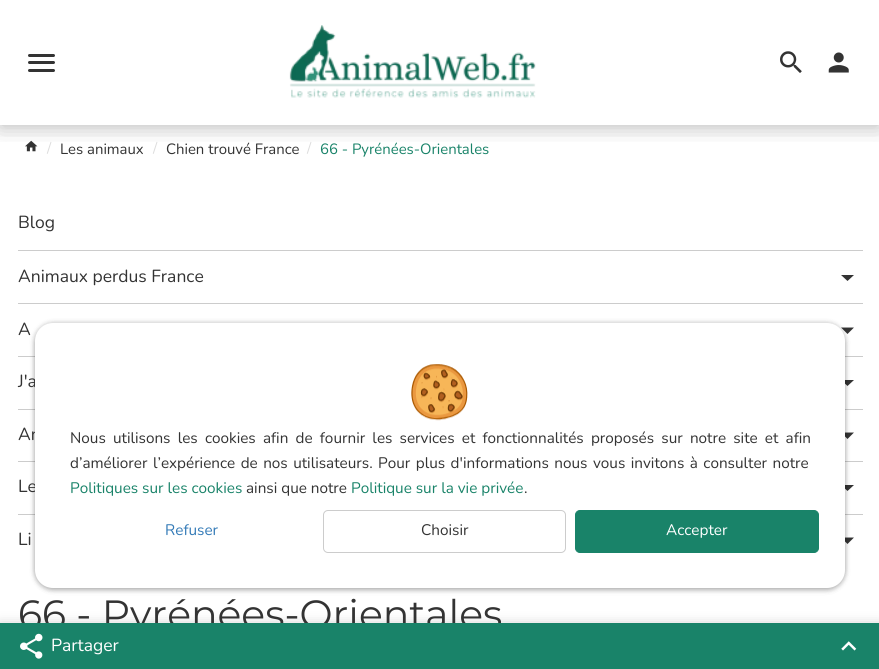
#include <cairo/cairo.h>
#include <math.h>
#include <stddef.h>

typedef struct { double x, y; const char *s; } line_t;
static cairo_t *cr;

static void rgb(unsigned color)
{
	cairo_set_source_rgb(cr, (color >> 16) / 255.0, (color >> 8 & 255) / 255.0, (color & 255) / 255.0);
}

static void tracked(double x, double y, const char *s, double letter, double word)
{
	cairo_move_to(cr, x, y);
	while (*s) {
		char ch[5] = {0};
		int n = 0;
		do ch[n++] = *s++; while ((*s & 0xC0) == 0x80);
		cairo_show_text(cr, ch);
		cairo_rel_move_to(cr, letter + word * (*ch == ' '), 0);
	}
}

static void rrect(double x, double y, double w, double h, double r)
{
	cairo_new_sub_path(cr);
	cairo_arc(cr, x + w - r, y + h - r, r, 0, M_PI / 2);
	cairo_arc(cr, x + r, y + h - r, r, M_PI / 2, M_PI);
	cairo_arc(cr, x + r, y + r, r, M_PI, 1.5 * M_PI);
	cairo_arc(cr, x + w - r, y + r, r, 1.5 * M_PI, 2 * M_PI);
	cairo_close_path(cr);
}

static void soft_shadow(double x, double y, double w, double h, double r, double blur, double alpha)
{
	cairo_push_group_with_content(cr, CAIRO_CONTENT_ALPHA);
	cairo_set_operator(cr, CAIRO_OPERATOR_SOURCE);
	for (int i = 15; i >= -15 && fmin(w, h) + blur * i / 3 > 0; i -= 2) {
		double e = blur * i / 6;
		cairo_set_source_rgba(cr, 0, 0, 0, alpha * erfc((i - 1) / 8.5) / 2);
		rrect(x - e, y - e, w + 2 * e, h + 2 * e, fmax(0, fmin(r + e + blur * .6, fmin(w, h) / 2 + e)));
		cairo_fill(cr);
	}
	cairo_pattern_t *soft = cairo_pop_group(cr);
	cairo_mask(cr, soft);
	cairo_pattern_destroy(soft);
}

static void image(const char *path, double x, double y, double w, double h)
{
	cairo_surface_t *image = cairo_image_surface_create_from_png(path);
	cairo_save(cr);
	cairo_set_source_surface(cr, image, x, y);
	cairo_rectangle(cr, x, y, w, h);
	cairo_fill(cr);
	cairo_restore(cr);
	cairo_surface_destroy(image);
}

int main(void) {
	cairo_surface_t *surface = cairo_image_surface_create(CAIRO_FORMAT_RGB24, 879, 669);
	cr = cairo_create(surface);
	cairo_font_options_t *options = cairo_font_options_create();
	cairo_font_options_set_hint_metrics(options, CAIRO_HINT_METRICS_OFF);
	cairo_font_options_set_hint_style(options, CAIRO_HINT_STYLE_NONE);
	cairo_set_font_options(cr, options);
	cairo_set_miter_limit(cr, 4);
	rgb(0xffffff);
	cairo_paint(cr);
	image("img/4.png", 25, 140, 13, 12);
	cairo_save(cr);
	cairo_rectangle(cr, 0, 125, 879, 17);
	cairo_clip(cr);
	rgb(0x000000);
	soft_shadow(0, 6, 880, 125, 0, 12.5, 0.1);
	cairo_restore(cr);
	cairo_save(cr);
	cairo_rectangle(cr, 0, 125, 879, 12);
	cairo_clip(cr);
	rgb(0x000000);
	soft_shadow(0, 0, 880, 125, 0, 9.5, 0.2);
	cairo_restore(cr);
	rgb(0x333333);
	rrect(28, 54, 27, 3, 1.5);
	cairo_fill(cr);
	rrect(28, 61, 27, 3, 1.5);
	cairo_fill(cr);
	rrect(28, 69, 27, 3, 1.5);
	cairo_fill(cr);
	image("img/1.png", 289, 25, 247, 73);
	image("img/2.png", 780, 51, 22, 22);
	image("img/3.png", 828, 52, 21, 21);
	rgb(0xcccccc);
	cairo_rectangle(cr, 18, 250, 845, 1);
	cairo_fill(cr);
	rgb(0x333333);
	cairo_new_path(cr);
	cairo_move_to(cr, 841, 275);
	cairo_line_to(cr, 854, 275);
	cairo_line_to(cr, 847.5, 281);
	cairo_close_path(cr);
	cairo_fill(cr);
	rgb(0xcccccc);
	cairo_rectangle(cr, 18, 303, 845, 1);
	cairo_fill(cr);
	rgb(0x333333);
	cairo_new_path(cr);
	cairo_move_to(cr, 841, 327.5);
	cairo_line_to(cr, 854, 327.5);
	cairo_line_to(cr, 847.5, 334);
	cairo_close_path(cr);
	cairo_fill(cr);
	rgb(0xcccccc);
	cairo_rectangle(cr, 18, 356, 845, 1);
	cairo_fill(cr);
	rgb(0x333333);
	cairo_new_path(cr);
	cairo_move_to(cr, 841, 380);
	cairo_line_to(cr, 854, 380);
	cairo_line_to(cr, 847.5, 386);
	cairo_close_path(cr);
	cairo_fill(cr);
	rgb(0xcccccc);
	cairo_rectangle(cr, 18, 409, 845, 1);
	cairo_fill(cr);
	rgb(0x333333);
	cairo_new_path(cr);
	cairo_move_to(cr, 841, 432.5);
	cairo_line_to(cr, 854, 432.5);
	cairo_line_to(cr, 847.5, 439);
	cairo_close_path(cr);
	cairo_fill(cr);
	rgb(0xcccccc);
	cairo_rectangle(cr, 18, 461, 845, 1);
	cairo_fill(cr);
	rgb(0x333333);
	cairo_new_path(cr);
	cairo_move_to(cr, 841, 485);
	cairo_line_to(cr, 854, 485);
	cairo_line_to(cr, 847.5, 491);
	cairo_close_path(cr);
	cairo_fill(cr);
	rgb(0xcccccc);
	cairo_rectangle(cr, 18, 514, 845, 1);
	cairo_fill(cr);
	rgb(0x333333);
	cairo_new_path(cr);
	cairo_move_to(cr, 841, 537.5);
	cairo_line_to(cr, 854, 537.5);
	cairo_line_to(cr, 847.5, 544);
	cairo_close_path(cr);
	cairo_fill(cr);
	rgb(0x000000);
	soft_shadow(35, 324, 810, 265, 18, 3, 0.2);
	soft_shadow(35, 326, 810, 265, 18, 2.5, 0.12);
	soft_shadow(35, 323, 810, 265, 18, 2.5, 0.14);
	soft_shadow(0, 624, 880, 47, 0, 6, 0.2);
	cairo_select_font_face(cr, "Nunito", CAIRO_FONT_SLANT_NORMAL, CAIRO_FONT_WEIGHT_NORMAL);
	cairo_set_font_size(cr, 14.9);
	rgb(0xdddddd);
	cairo_move_to(cr, 47, 153);
	cairo_show_text(cr, "/");
	rgb(0x333333);
	cairo_move_to(cr, 60, 154);
	cairo_show_text(cr, "Les animaux");
	rgb(0xdddddd);
	cairo_move_to(cr, 153, 153);
	cairo_show_text(cr, "/");
	rgb(0x333333);
	cairo_move_to(cr, 166, 154);
	cairo_show_text(cr, "Chien trouvé France");
	rgb(0xdddddd);
	cairo_move_to(cr, 307, 153);
	cairo_show_text(cr, "/");
	rgb(0x198369);
	cairo_move_to(cr, 320, 154);
	cairo_show_text(cr, "66 - Pyrénées-Orientales");
	cairo_set_font_size(cr, 17.5);
	rgb(0x333333);
	{
		static const line_t items[] = {
			{18, 228, "Blog"},
			{18, 282, "Animaux perdus France"},
			{18, 335, "A"},
			{18, 387, "J'a"},
			{18, 440, "An"},
			{18, 492, "Le"},
			{18, 545, "Li"},
		};
		for (size_t i = 0; i < sizeof items / sizeof *items; i++) {
			cairo_move_to(cr, items[i].x, items[i].y);
			cairo_show_text(cr, items[i].s);
		}
	}
	cairo_select_font_face(cr, "Montserrat", CAIRO_FONT_SLANT_NORMAL, CAIRO_FONT_WEIGHT_NORMAL);
	cairo_set_font_size(cr, 39.4);
	cairo_move_to(cr, 18, 628);
	cairo_show_text(cr, "66 - Pyrénées-Orientales");
	rgb(0xffffff);
	rrect(35, 323, 810, 265, 18);
	cairo_fill(cr);
	image("img/5.png", 411, 364, 57, 57);
	cairo_select_font_face(cr, "Nunito", CAIRO_FONT_SLANT_NORMAL, CAIRO_FONT_WEIGHT_NORMAL);
	cairo_set_font_size(cr, 15.3);
	rgb(0x333333);
	tracked(70, 443, "Nous utilisons les cookies afin de fournir les services et fonctionnalités proposés sur notre site et afin", 0, 3.25);
	tracked(70, 468, "d’améliorer l’expérience de nos utilisateurs. Pour plus d'informations nous vous invitons à consulter notre", 0, 1.5);
	rgb(0x198369);
	cairo_move_to(cr, 70, 493);
	cairo_show_text(cr, "Politiques sur les cookies");
	rgb(0x333333);
	cairo_move_to(cr, 246, 493);
	cairo_show_text(cr, "ainsi que notre");
	rgb(0x198369);
	cairo_move_to(cr, 351, 493);
	cairo_show_text(cr, "Politique sur la vie privée");
	rgb(0x333333);
	cairo_move_to(cr, 524, 493);
	cairo_show_text(cr, ".");
	rgb(0x337ab7);
	cairo_move_to(cr, 165, 535);
	cairo_show_text(cr, "Refuser");
	rrect(323.5, 510.5, 242, 42, 4.5);
	rgb(0xcccccc);
	cairo_set_line_width(cr, 1);
	cairo_stroke(cr);
	rgb(0x333333);
	cairo_move_to(cr, 421, 535);
	cairo_show_text(cr, "Choisir");
	rgb(0x198369);
	rrect(575.5, 510.5, 243, 42, 4.5);
	cairo_fill_preserve(cr);
	cairo_stroke(cr);
	rgb(0xffffff);
	cairo_move_to(cr, 666, 535);
	cairo_show_text(cr, "Accepter");
	rgb(0x198369);
	cairo_rectangle(cr, 0, 623, 879, 46);
	cairo_fill(cr);
	image("img/6.png", 20, 633, 23, 26);
	cairo_set_font_size(cr, 17.5);
	rgb(0xffffff);
	cairo_move_to(cr, 51, 651);
	cairo_show_text(cr, "Partager");
	image("img/7.png", 841, 641, 16, 10);
	cairo_surface_write_to_png(surface, "page.png");
	cairo_font_options_destroy(options);
	cairo_destroy(cr);
	cairo_surface_destroy(surface);
	return 0;
}
